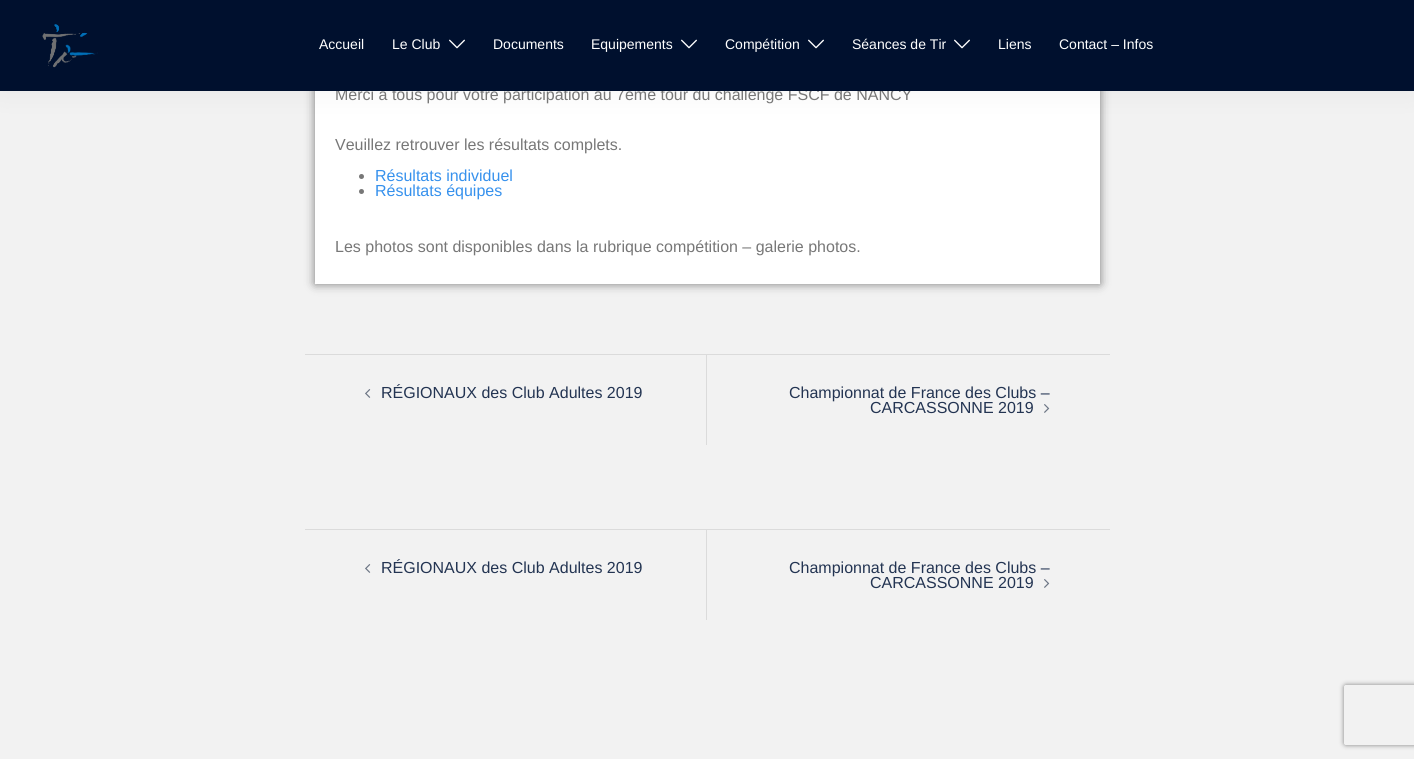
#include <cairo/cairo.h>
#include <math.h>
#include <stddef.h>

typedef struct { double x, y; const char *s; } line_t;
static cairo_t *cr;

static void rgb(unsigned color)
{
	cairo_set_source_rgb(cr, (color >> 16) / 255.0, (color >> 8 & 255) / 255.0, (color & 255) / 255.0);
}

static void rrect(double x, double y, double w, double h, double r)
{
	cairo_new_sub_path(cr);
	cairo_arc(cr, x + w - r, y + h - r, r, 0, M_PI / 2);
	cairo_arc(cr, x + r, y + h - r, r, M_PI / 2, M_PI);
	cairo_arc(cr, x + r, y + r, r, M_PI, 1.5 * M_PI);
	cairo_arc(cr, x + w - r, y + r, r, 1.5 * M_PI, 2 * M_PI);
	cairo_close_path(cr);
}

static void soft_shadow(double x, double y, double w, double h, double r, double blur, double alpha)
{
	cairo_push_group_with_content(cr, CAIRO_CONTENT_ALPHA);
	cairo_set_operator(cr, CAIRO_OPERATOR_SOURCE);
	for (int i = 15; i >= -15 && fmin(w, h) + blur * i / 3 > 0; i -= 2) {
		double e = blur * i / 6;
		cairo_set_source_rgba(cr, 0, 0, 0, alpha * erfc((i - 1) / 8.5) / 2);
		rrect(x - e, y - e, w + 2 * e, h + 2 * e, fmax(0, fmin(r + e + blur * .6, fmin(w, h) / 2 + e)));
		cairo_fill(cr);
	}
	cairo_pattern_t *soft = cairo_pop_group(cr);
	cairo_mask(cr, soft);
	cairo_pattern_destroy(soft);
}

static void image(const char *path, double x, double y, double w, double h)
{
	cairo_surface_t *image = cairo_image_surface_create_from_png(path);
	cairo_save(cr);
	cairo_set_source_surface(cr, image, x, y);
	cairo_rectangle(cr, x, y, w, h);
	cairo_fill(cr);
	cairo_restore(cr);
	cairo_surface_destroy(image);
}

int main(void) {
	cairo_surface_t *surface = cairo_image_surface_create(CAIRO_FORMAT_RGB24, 1414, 759);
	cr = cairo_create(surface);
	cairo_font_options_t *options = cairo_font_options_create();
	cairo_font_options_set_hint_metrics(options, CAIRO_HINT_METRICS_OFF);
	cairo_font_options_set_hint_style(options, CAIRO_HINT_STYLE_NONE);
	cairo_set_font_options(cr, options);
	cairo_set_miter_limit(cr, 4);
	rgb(0xf2f2f2);
	cairo_paint(cr);
	rgb(0x000000);
	soft_shadow(315, 67, 785, 217, 0, 5, 0.5);
	rgb(0xffffff);
	cairo_rectangle(cr, 315, 91, 785, 193);
	cairo_fill(cr);
	rgb(0x000000);
	soft_shadow(0, 0, 1414, 91, 0, 15, 0.05);
	rgb(0x777777);
	cairo_arc(cr, 361.5, 176.5, 2.5, 0, 2 * M_PI);
	cairo_fill(cr);
	cairo_arc(cr, 361.5, 191.5, 2.5, 0, 2 * M_PI);
	cairo_fill(cr);
	rgb(0xdbdbdb);
	cairo_rectangle(cr, 305, 354, 805, 1);
	cairo_fill(cr);
	cairo_rectangle(cr, 706, 355, 1, 90);
	cairo_fill(cr);
	image("img/3.png", 365, 389, 6, 9);
	image("img/4.png", 1044, 404, 6, 9);
	cairo_rectangle(cr, 305, 529, 805, 1);
	cairo_fill(cr);
	cairo_rectangle(cr, 706, 530, 1, 90);
	cairo_fill(cr);
	image("img/3.png", 365, 564, 6, 9);
	image("img/4.png", 1044, 579, 6, 9);
	cairo_save(cr);
	cairo_set_fill_rule(cr, CAIRO_FILL_RULE_EVEN_ODD);
	cairo_new_path(cr);
	cairo_move_to(cr, 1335, 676);
	cairo_line_to(cr, 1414, 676);
	cairo_line_to(cr, 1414, 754);
	cairo_line_to(cr, 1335, 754);
	cairo_close_path(cr);
	cairo_move_to(cr, 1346, 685);
	cairo_line_to(cr, 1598, 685);
	cairo_curve_to(cr, 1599, 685, 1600, 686, 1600, 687);
	cairo_line_to(cr, 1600, 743);
	cairo_curve_to(cr, 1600, 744, 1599, 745, 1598, 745);
	cairo_line_to(cr, 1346, 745);
	cairo_curve_to(cr, 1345, 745, 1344, 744, 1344, 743);
	cairo_line_to(cr, 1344, 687);
	cairo_curve_to(cr, 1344, 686, 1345, 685, 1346, 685);
	cairo_close_path(cr);
	cairo_clip(cr);
	rgb(0x808080);
	soft_shadow(1344, 685, 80, 60, 2, 2.5, 1);
	cairo_restore(cr);
	cairo_select_font_face(cr, "Liberation Sans", CAIRO_FONT_SLANT_NORMAL, CAIRO_FONT_WEIGHT_NORMAL);
	cairo_set_font_size(cr, 16);
	rgb(0x777777);
	cairo_move_to(cr, 335, 100);
	cairo_show_text(cr, "Merci à tous pour votre participation au 7ème tour du challenge FSCF de NANCY");
	rgb(0x00102e);
	cairo_rectangle(cr, 0, 0, 1414, 91);
	cairo_fill(cr);
	cairo_set_font_size(cr, 14);
	rgb(0xffffff);
	cairo_move_to(cr, 1059, 49);
	cairo_show_text(cr, "Contact – Infos");
	cairo_move_to(cr, 998, 49);
	cairo_show_text(cr, "Liens");
	image("img/2.png", 954, 39, 16, 10);
	cairo_move_to(cr, 852, 49);
	cairo_show_text(cr, "Séances de Tir");
	image("img/2.png", 808, 39, 16, 10);
	cairo_move_to(cr, 725, 49);
	cairo_show_text(cr, "Compétition");
	image("img/2.png", 681, 39, 16, 10);
	cairo_move_to(cr, 591, 49);
	cairo_show_text(cr, "Equipements");
	cairo_move_to(cr, 493, 49);
	cairo_show_text(cr, "Documents");
	image("img/2.png", 449, 39, 16, 10);
	cairo_move_to(cr, 392, 49);
	cairo_show_text(cr, "Le Club");
	cairo_move_to(cr, 319, 49);
	cairo_show_text(cr, "Accueil");
	image("img/1.png", 42, 24, 56, 44);
	cairo_set_font_size(cr, 16);
	rgb(0x777777);
	cairo_move_to(cr, 335, 150);
	cairo_show_text(cr, "Veuillez retrouver les résultats complets.");
	rgb(0x3691ed);
	cairo_move_to(cr, 375, 181);
	cairo_show_text(cr, "Résultats individuel");
	cairo_move_to(cr, 375, 196);
	cairo_show_text(cr, "Résultats équipes");
	rgb(0x777777);
	cairo_move_to(cr, 335, 252);
	cairo_show_text(cr, "Les photos sont disponibles dans la rubrique compétition – galerie photos.");
	rgb(0x233452);
	{
		static const line_t items[] = {
			{381, 398, "RÉGIONAUX des Club Adultes 2019"},
			{789, 398, "Championnat de France des Clubs –"},
			{870, 413, "CARCASSONNE 2019"},
			{381, 573, "RÉGIONAUX des Club Adultes 2019"},
			{789, 573, "Championnat de France des Clubs –"},
			{870, 588, "CARCASSONNE 2019"},
		};
		for (size_t i = 0; i < sizeof items / sizeof *items; i++) {
			cairo_move_to(cr, items[i].x, items[i].y);
			cairo_show_text(cr, items[i].s);
		}
	}
	cairo_surface_write_to_png(surface, "page.png");
	cairo_font_options_destroy(options);
	cairo_destroy(cr);
	cairo_surface_destroy(surface);
	return 0;
}
